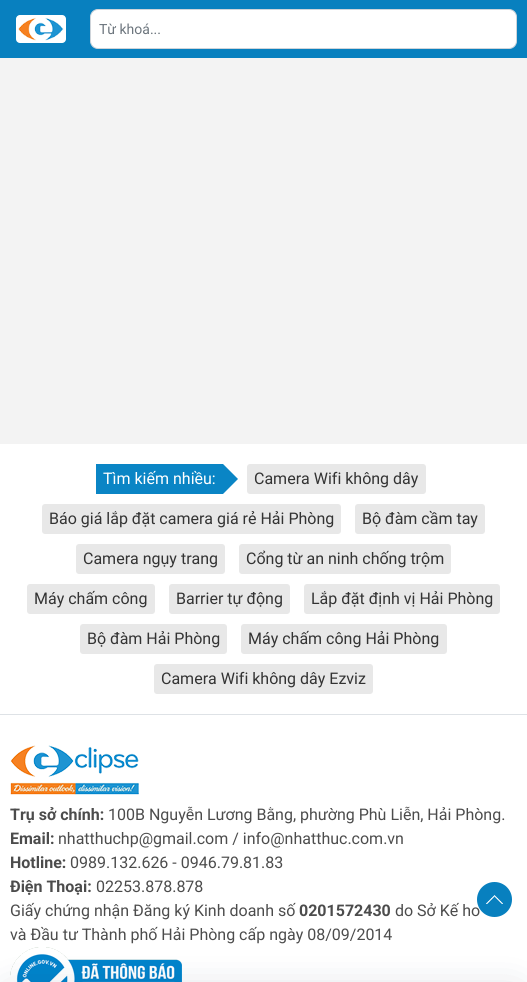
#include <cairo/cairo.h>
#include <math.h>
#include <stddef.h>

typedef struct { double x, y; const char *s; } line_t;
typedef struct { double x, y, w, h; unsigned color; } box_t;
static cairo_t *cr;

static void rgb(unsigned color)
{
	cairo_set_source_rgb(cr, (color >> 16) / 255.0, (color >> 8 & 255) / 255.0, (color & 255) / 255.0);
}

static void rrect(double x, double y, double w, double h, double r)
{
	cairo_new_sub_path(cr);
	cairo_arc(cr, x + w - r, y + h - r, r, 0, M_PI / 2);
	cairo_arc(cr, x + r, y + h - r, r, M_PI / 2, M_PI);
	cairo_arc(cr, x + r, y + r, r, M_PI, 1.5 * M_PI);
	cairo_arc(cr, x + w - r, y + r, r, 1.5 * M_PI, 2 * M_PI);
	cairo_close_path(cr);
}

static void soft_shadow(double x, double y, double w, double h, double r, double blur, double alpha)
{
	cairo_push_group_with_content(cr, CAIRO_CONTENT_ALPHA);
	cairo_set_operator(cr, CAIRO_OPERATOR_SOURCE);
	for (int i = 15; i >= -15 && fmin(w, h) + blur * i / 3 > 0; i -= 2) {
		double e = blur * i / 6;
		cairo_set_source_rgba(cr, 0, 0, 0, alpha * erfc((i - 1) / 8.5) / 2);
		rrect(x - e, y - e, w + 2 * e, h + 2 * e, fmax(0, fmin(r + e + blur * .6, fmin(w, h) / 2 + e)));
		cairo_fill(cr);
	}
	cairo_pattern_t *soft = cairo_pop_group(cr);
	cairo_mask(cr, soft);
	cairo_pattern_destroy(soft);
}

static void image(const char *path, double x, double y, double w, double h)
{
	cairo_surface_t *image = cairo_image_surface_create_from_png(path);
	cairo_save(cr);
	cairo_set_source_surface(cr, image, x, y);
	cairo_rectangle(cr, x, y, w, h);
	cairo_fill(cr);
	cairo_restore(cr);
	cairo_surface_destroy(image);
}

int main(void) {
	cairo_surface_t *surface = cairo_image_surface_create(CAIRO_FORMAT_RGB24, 527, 982);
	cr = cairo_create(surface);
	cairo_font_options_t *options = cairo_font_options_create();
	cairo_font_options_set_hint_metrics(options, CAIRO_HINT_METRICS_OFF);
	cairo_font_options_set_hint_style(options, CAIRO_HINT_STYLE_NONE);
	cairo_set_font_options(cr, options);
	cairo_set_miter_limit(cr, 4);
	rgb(0xf3f3f3);
	cairo_paint(cr);
	rgb(0x0880bf);
	cairo_rectangle(cr, 0, 0, 527, 58);
	cairo_fill(cr);
	rgb(0xffffff);
	rrect(16, 15, 50, 28, 4);
	cairo_fill(cr);
	image("img/1.png", 18, 17, 46, 24);
	rrect(90.5, 9.5, 426, 39, 7.5);
	cairo_fill_preserve(cr);
	rgb(0xced4da);
	cairo_set_line_width(cr, 1);
	cairo_stroke(cr);
	{
		static const box_t items[] = {
			{0, 444, 527, 538, 0xffffff},
			{0, 714, 527, 1, 0xdee2e6},
			{96, 464, 127, 30, 0x0a85c5},
		};
		for (size_t i = 0; i < sizeof items / sizeof *items; i++) {
			rgb(items[i].color);
			cairo_rectangle(cr, items[i].x, items[i].y, items[i].w, items[i].h);
			cairo_fill(cr);
		}
	}
	cairo_new_path(cr);
	cairo_move_to(cr, 223, 494);
	cairo_line_to(cr, 223, 464);
	cairo_line_to(cr, 238, 479);
	cairo_close_path(cr);
	cairo_fill(cr);
	rgb(0xe8e8e8);
	rrect(247, 464, 179, 30, 3);
	cairo_fill(cr);
	rrect(42, 504, 299, 30, 3);
	cairo_fill(cr);
	rrect(355, 504, 130, 30, 3);
	cairo_fill(cr);
	rrect(76, 544, 149, 30, 3);
	cairo_fill(cr);
	rrect(239, 544, 212, 30, 3);
	cairo_fill(cr);
	rrect(27, 584, 128, 30, 3);
	cairo_fill(cr);
	rrect(169, 584, 121, 30, 3);
	cairo_fill(cr);
	rrect(304, 584, 196, 30, 3);
	cairo_fill(cr);
	rrect(80, 624, 147, 30, 3);
	cairo_fill(cr);
	rrect(241, 624, 206, 30, 3);
	cairo_fill(cr);
	rrect(154, 664, 219, 30, 3);
	cairo_fill(cr);
	image("img/2.png", 10, 745, 129, 50);
	image("img/3.png", 10, 947, 172, 35);
	rgb(0x102a43);
	soft_shadow(0, 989, 527, 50, 15, 18, 0.15);
	cairo_select_font_face(cr, "Roboto", CAIRO_FONT_SLANT_NORMAL, CAIRO_FONT_WEIGHT_NORMAL);
	cairo_set_font_size(cr, 14);
	rgb(0x6c757d);
	cairo_move_to(cr, 99, 34);
	cairo_show_text(cr, "Từ khoá...");
	cairo_set_font_size(cr, 16);
	rgb(0xffffff);
	cairo_move_to(cr, 103, 484);
	cairo_show_text(cr, "Tìm kiếm nhiều:");
	rgb(0x333333);
	{
		static const line_t items[] = {
			{254, 484, "Camera Wifi không dây"},
			{49, 524, "Báo giá lắp đặt camera giá rẻ Hải Phòng"},
			{362, 524, "Bộ đàm cầm tay"},
			{83, 564, "Camera ngụy trang"},
			{246, 564, "Cổng từ an ninh chống trộm"},
			{34, 604, "Máy chấm công"},
			{176, 604, "Barrier tự động"},
			{311, 604, "Lắp đặt định vị Hải Phòng"},
			{87, 644, "Bộ đàm Hải Phòng"},
			{248, 644, "Máy chấm công Hải Phòng"},
			{161, 684, "Camera Wifi không dây Ezviz"},
		};
		for (size_t i = 0; i < sizeof items / sizeof *items; i++) {
			cairo_move_to(cr, items[i].x, items[i].y);
			cairo_show_text(cr, items[i].s);
		}
	}
	cairo_select_font_face(cr, "Roboto", CAIRO_FONT_SLANT_NORMAL, CAIRO_FONT_WEIGHT_BOLD);
	rgb(0x4c4c4c);
	cairo_move_to(cr, 10, 820);
	cairo_show_text(cr, "Trụ sở chính:");
	cairo_select_font_face(cr, "Roboto", CAIRO_FONT_SLANT_NORMAL, CAIRO_FONT_WEIGHT_NORMAL);
	cairo_move_to(cr, 108, 820);
	cairo_show_text(cr, "100B Nguyễn Lương Bằng, phường Phù Liễn, Hải Phòng.");
	cairo_select_font_face(cr, "Roboto", CAIRO_FONT_SLANT_NORMAL, CAIRO_FONT_WEIGHT_BOLD);
	cairo_move_to(cr, 10, 844);
	cairo_show_text(cr, "Email:");
	cairo_select_font_face(cr, "Roboto", CAIRO_FONT_SLANT_NORMAL, CAIRO_FONT_WEIGHT_NORMAL);
	cairo_move_to(cr, 58, 844);
	cairo_show_text(cr, "nhatthuchp@gmail.com / info@nhatthuc.com.vn");
	cairo_select_font_face(cr, "Roboto", CAIRO_FONT_SLANT_NORMAL, CAIRO_FONT_WEIGHT_BOLD);
	cairo_move_to(cr, 10, 868);
	cairo_show_text(cr, "Hotline:");
	cairo_select_font_face(cr, "Roboto", CAIRO_FONT_SLANT_NORMAL, CAIRO_FONT_WEIGHT_NORMAL);
	cairo_move_to(cr, 70, 868);
	cairo_show_text(cr, "0989.132.626 - 0946.79.81.83");
	cairo_select_font_face(cr, "Roboto", CAIRO_FONT_SLANT_NORMAL, CAIRO_FONT_WEIGHT_BOLD);
	cairo_move_to(cr, 10, 892);
	cairo_show_text(cr, "Điện Thoại:");
	cairo_select_font_face(cr, "Roboto", CAIRO_FONT_SLANT_NORMAL, CAIRO_FONT_WEIGHT_NORMAL);
	cairo_move_to(cr, 96, 892);
	cairo_show_text(cr, "02253.878.878");
	cairo_move_to(cr, 10, 916);
	cairo_show_text(cr, "Giấy chứng nhận Đăng ký Kinh doanh số");
	cairo_select_font_face(cr, "Roboto", CAIRO_FONT_SLANT_NORMAL, CAIRO_FONT_WEIGHT_BOLD);
	cairo_move_to(cr, 299, 916);
	cairo_show_text(cr, "0201572430");
	cairo_select_font_face(cr, "Roboto", CAIRO_FONT_SLANT_NORMAL, CAIRO_FONT_WEIGHT_NORMAL);
	cairo_move_to(cr, 395, 916);
	cairo_show_text(cr, "do Sở Kế ho");
	cairo_move_to(cr, 10, 940);
	cairo_show_text(cr, "và Đầu tư Thành phố Hải Phòng cấp ngày 08/09/2014");
	rgb(0x0880bf);
	cairo_new_path(cr);
	cairo_arc(cr, 494.5, 899.5, 17.5, 0, 2 * M_PI);
	cairo_fill(cr);
	image("img/4.png", 486, 895, 17, 9);
	cairo_surface_write_to_png(surface, "page.png");
	cairo_font_options_destroy(options);
	cairo_destroy(cr);
	cairo_surface_destroy(surface);
	return 0;
}
